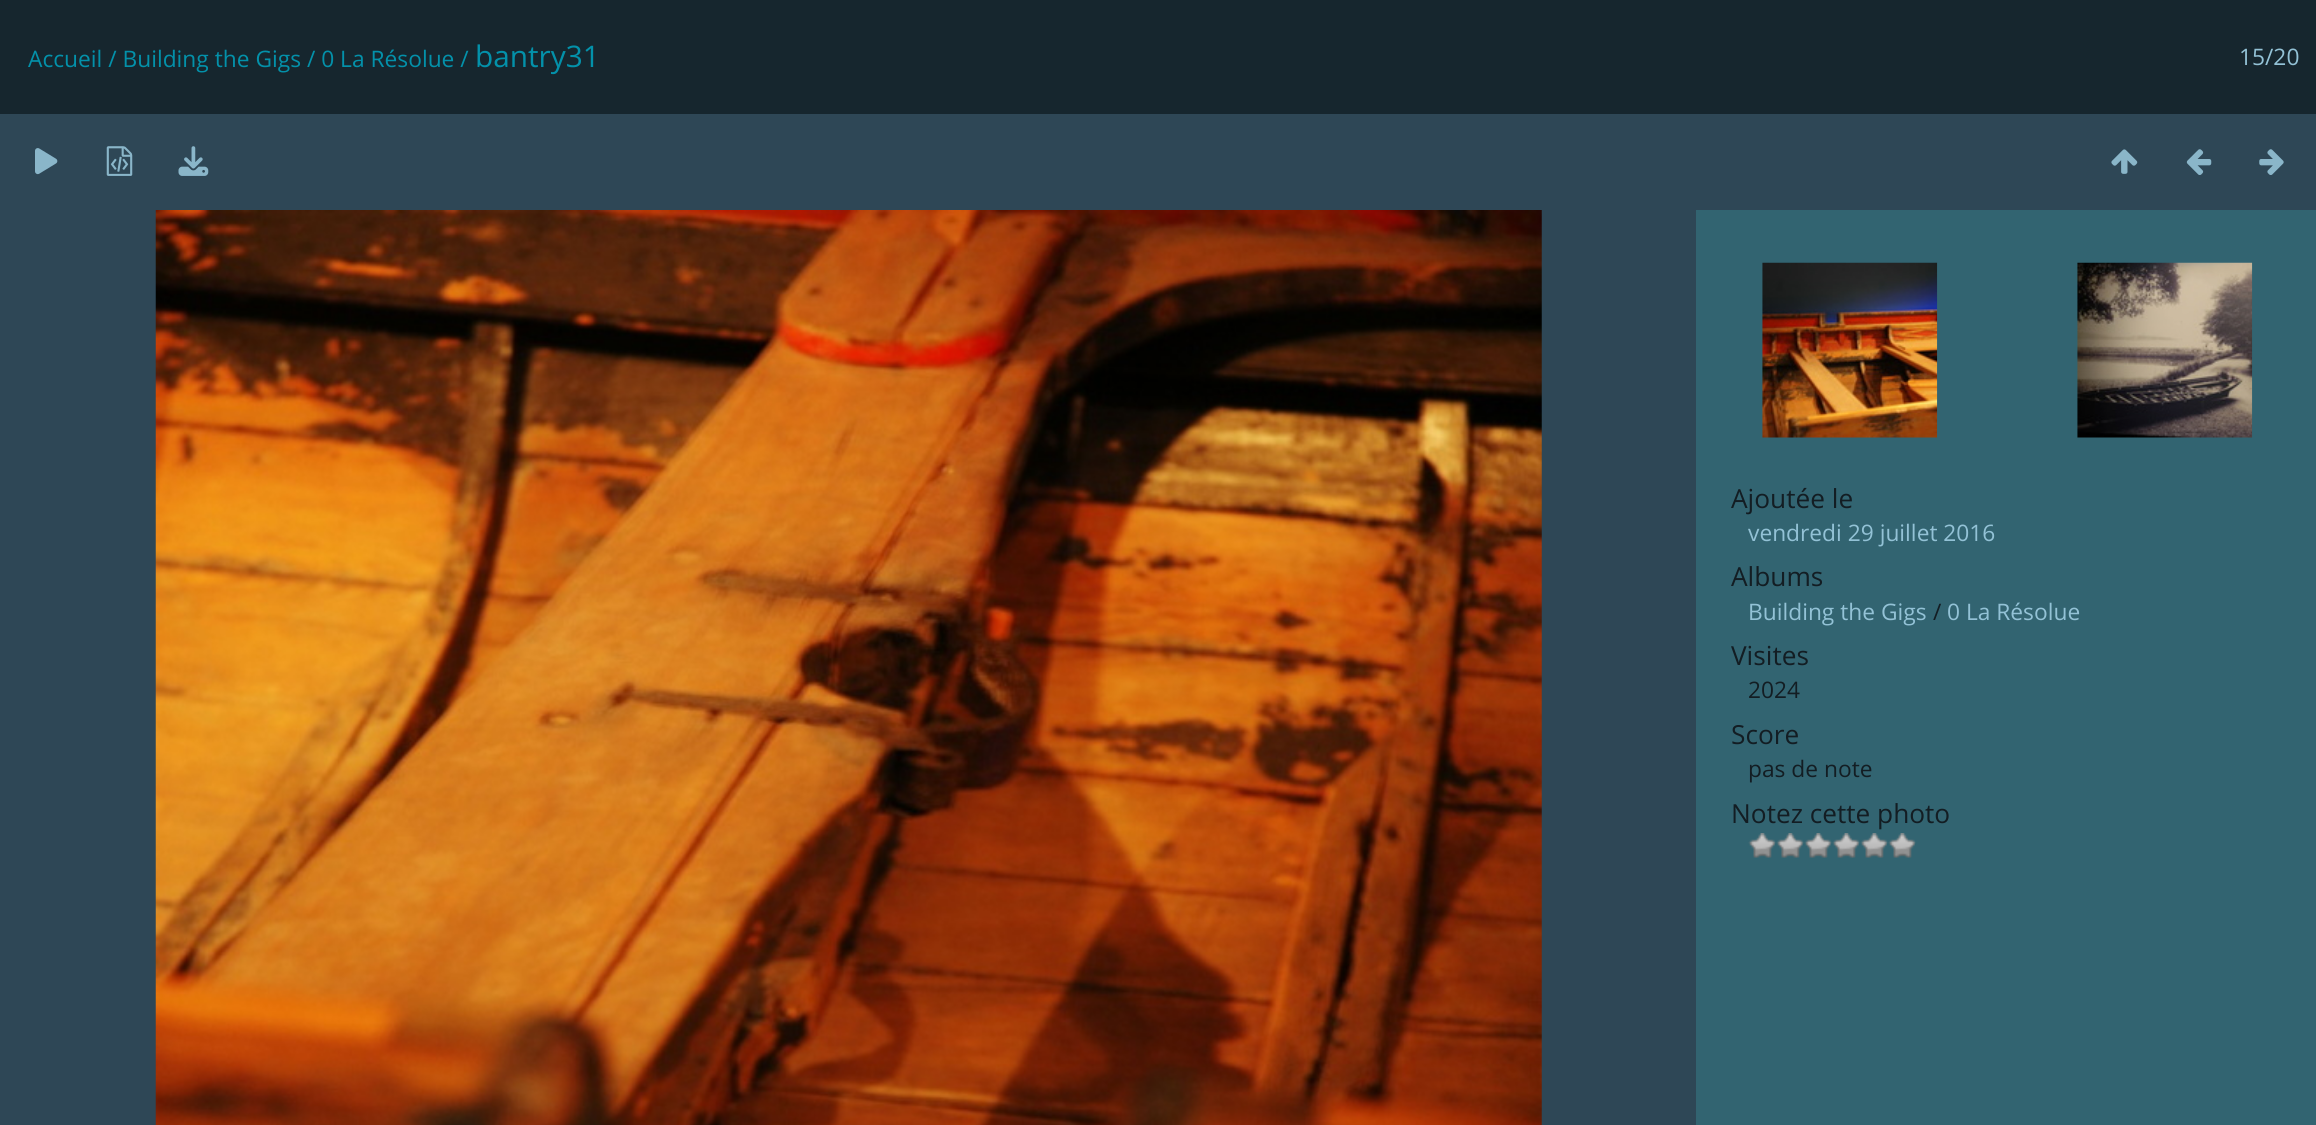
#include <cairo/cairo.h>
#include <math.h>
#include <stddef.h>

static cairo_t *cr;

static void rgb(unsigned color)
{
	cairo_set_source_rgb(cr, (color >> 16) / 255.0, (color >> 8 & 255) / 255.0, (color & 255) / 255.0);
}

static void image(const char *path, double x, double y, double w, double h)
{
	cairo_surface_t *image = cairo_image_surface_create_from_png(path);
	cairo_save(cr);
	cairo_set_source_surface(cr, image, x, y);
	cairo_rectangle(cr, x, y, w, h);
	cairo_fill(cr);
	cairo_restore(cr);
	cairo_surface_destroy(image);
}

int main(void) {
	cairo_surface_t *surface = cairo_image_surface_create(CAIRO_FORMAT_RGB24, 2316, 1125);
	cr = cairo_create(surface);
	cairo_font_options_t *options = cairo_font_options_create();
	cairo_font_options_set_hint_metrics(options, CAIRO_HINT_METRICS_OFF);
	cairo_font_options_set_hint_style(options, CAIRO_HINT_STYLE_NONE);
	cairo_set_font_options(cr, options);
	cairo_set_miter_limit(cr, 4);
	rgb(0x2e4756);
	cairo_paint(cr);
	rgb(0x16262e);
	cairo_rectangle(cr, 0, 0, 2316, 114);
	cairo_fill(cr);
	image("img/1.png", 35, 148, 23, 27);
	image("img/2.png", 106, 146, 27, 30);
	image("img/3.png", 178, 146, 31, 30);
	image("img/4.png", 2111, 149, 27, 25);
	image("img/5.png", 2186, 149, 26, 26);
	image("img/6.png", 2259, 149, 25, 26);
	image("img/7.png", 155, 210, 1387, 915);
	rgb(0x326471);
	cairo_rectangle(cr, 1696, 210, 620, 915);
	cairo_fill(cr);
	image("img/8.png", 1762, 262, 176, 176);
	image("img/9.png", 2077, 262, 176, 176);
	image("img/10.png", 1748, 833, 28, 25);
	image("img/11.png", 1776, 833, 28, 25);
	image("img/11.png", 1804, 833, 28, 25);
	image("img/10.png", 1832, 833, 28, 25);
	image("img/10.png", 1860, 833, 28, 25);
	image("img/10.png", 1888, 833, 28, 25);
	cairo_select_font_face(cr, "Open Sans", CAIRO_FONT_SLANT_NORMAL, CAIRO_FONT_WEIGHT_NORMAL);
	cairo_set_font_size(cr, 22.75);
	rgb(0x0391aa);
	cairo_move_to(cr, 28, 67);
	cairo_show_text(cr, "Accueil / Building the Gigs / 0 La Résolue /");
	cairo_set_font_size(cr, 29.75);
	cairo_move_to(cr, 475, 67);
	cairo_show_text(cr, "bantry31");
	cairo_set_font_size(cr, 22.75);
	rgb(0x93c2d6);
	cairo_move_to(cr, 2239, 65);
	cairo_show_text(cr, "15/20");
	cairo_set_font_size(cr, 26.25);
	rgb(0x131d23);
	cairo_move_to(cr, 1731, 508);
	cairo_show_text(cr, "Ajoutée le");
	cairo_set_font_size(cr, 22.75);
	rgb(0x93c2d6);
	cairo_move_to(cr, 1748, 541);
	cairo_show_text(cr, "vendredi 29 juillet 2016");
	cairo_set_font_size(cr, 26.25);
	rgb(0x131d23);
	cairo_move_to(cr, 1731, 586);
	cairo_show_text(cr, "Albums");
	cairo_set_font_size(cr, 22.75);
	rgb(0x93c2d6);
	cairo_move_to(cr, 1748, 620);
	cairo_show_text(cr, "Building the Gigs");
	rgb(0x131d23);
	cairo_move_to(cr, 1933, 620);
	cairo_show_text(cr, "/");
	rgb(0x93c2d6);
	cairo_move_to(cr, 1947, 620);
	cairo_show_text(cr, "0 La Résolue");
	cairo_set_font_size(cr, 26.25);
	rgb(0x131d23);
	cairo_move_to(cr, 1731, 665);
	cairo_show_text(cr, "Visites");
	cairo_set_font_size(cr, 22.75);
	cairo_move_to(cr, 1748, 698);
	cairo_show_text(cr, "2024");
	cairo_set_font_size(cr, 26.25);
	cairo_move_to(cr, 1731, 744);
	cairo_show_text(cr, "Score");
	cairo_set_font_size(cr, 22.75);
	cairo_move_to(cr, 1748, 777);
	cairo_show_text(cr, "pas de note");
	cairo_set_font_size(cr, 26.25);
	cairo_move_to(cr, 1731, 823);
	cairo_show_text(cr, "Notez cette photo");
	cairo_surface_write_to_png(surface, "page.png");
	cairo_font_options_destroy(options);
	cairo_destroy(cr);
	cairo_surface_destroy(surface);
	return 0;
}
